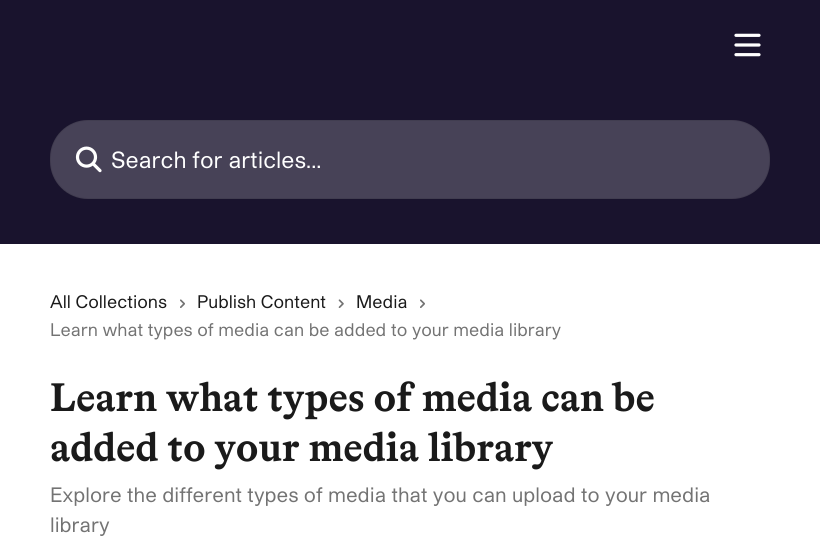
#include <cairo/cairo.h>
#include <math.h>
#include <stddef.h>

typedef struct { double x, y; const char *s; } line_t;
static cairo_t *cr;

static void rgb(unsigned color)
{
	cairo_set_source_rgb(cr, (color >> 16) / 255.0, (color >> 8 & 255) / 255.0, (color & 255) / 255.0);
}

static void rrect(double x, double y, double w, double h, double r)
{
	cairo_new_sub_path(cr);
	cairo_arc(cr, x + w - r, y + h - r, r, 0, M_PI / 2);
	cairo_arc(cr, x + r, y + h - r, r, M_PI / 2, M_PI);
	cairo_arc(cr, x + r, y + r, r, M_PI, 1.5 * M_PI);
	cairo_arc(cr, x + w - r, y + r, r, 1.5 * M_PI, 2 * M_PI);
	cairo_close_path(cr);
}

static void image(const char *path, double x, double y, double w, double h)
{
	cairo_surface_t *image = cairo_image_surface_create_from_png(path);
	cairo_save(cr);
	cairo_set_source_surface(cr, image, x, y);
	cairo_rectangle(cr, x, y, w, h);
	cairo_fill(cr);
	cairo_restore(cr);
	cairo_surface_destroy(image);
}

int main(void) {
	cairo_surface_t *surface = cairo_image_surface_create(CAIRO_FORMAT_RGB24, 820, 553);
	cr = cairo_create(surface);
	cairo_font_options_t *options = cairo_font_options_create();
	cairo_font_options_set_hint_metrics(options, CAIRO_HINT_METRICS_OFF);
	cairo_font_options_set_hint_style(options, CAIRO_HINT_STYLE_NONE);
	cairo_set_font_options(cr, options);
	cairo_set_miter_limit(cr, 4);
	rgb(0xffffff);
	cairo_paint(cr);
	rgb(0x19132d);
	cairo_rectangle(cr, 0, 0, 820, 244);
	cairo_fill(cr);
	image("img/1.png", 734, 33, 27, 24);
	rgb(0x474257);
	rrect(50, 120, 720, 79, 38);
	cairo_fill(cr);
	rrect(50.5, 120.5, 719, 78, 37.5);
	cairo_set_source_rgba(cr, 0, 0, 0, 0.08);
	cairo_set_line_width(cr, 1);
	cairo_stroke(cr);
	image("img/2.png", 75, 146, 27, 27);
	image("img/3.png", 180, 299, 5, 9);
	image("img/4.png", 338, 299, 6, 9);
	image("img/3.png", 420, 299, 5, 9);
	cairo_select_font_face(cr, "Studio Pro", CAIRO_FONT_SLANT_NORMAL, CAIRO_FONT_WEIGHT_NORMAL);
	cairo_set_font_size(cr, 22.5);
	rgb(0xffffff);
	cairo_move_to(cr, 111, 168);
	cairo_show_text(cr, "Search for articles...");
	cairo_set_font_size(cr, 17.5);
	rgb(0x1a1a1a);
	{
		static const line_t items[] = {
			{50, 308, "All Collections"},
			{197, 308, "Publish Content"},
			{356, 308, "Media"},
		};
		for (size_t i = 0; i < sizeof items / sizeof *items; i++) {
			cairo_move_to(cr, items[i].x, items[i].y);
			cairo_show_text(cr, items[i].s);
		}
	}
	rgb(0x737373);
	cairo_move_to(cr, 50, 336);
	cairo_show_text(cr, "Learn what types of media can be added to your media library");
	cairo_select_font_face(cr, "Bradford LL", CAIRO_FONT_SLANT_NORMAL, CAIRO_FONT_WEIGHT_BOLD);
	cairo_set_font_size(cr, 40);
	rgb(0x1a1a1a);
	cairo_move_to(cr, 50, 411);
	cairo_show_text(cr, "Learn what types of media can be");
	cairo_move_to(cr, 50, 461);
	cairo_show_text(cr, "added to your media library");
	cairo_select_font_face(cr, "Studio Pro", CAIRO_FONT_SLANT_NORMAL, CAIRO_FONT_WEIGHT_NORMAL);
	cairo_set_font_size(cr, 20);
	rgb(0x737373);
	cairo_move_to(cr, 50, 502);
	cairo_show_text(cr, "Explore the different types of media that you can upload to your media");
	cairo_move_to(cr, 50, 532);
	cairo_show_text(cr, "library");
	cairo_surface_write_to_png(surface, "page.png");
	cairo_font_options_destroy(options);
	cairo_destroy(cr);
	cairo_surface_destroy(surface);
	return 0;
}
